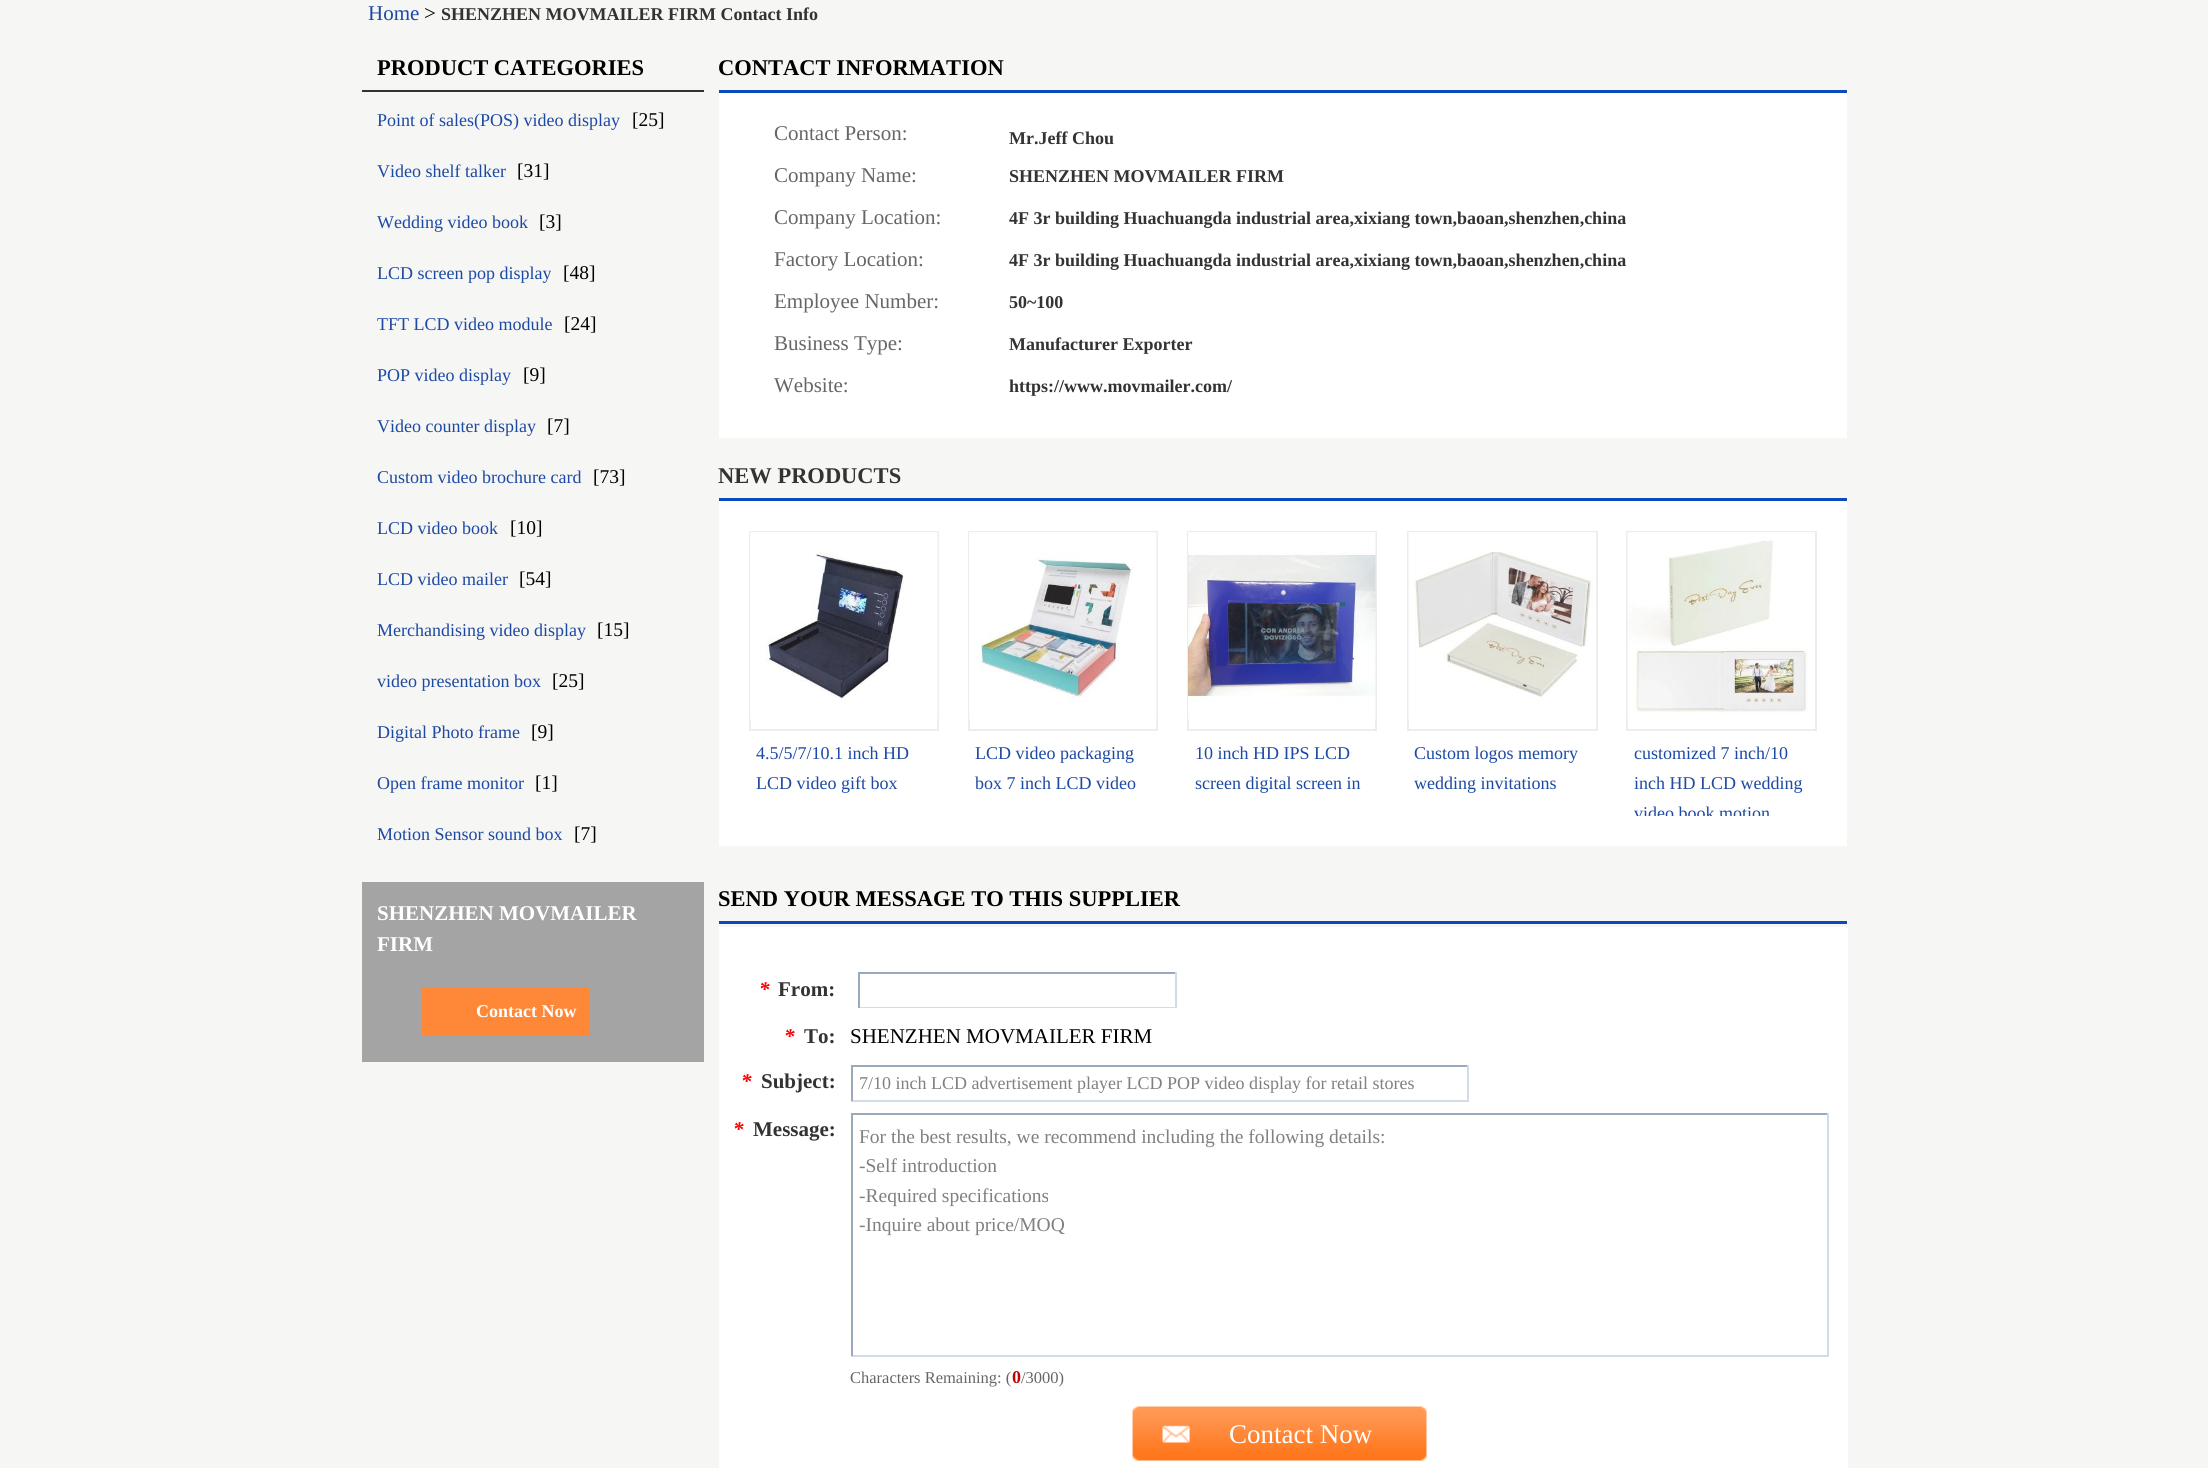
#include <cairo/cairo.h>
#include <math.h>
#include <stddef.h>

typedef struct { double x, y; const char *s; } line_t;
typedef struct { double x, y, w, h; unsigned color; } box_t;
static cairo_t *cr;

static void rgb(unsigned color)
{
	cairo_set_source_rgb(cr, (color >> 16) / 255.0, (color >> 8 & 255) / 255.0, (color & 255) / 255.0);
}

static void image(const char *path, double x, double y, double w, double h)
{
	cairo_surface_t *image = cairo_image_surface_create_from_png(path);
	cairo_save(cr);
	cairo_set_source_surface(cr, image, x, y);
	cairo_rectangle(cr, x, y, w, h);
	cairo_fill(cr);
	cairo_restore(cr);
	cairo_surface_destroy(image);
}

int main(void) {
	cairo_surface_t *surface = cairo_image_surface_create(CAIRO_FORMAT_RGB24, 2208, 1468);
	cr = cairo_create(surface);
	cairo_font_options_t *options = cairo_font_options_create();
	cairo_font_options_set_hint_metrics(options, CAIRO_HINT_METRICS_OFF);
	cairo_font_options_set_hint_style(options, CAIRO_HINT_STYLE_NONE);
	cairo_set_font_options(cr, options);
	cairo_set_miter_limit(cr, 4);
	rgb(0xf6f6f4);
	cairo_paint(cr);
	{
		static const box_t items[] = {
			{362, 90, 342, 2, 0x333333},
			{362, 882, 342, 180, 0xa4a4a4},
			{422, 987, 168, 48, 0xff8838},
			{719, 93, 1128, 345, 0xffffff},
			{719, 90, 1128, 3, 0x0e49bb},
			{719, 501, 1128, 345, 0xffffff},
			{719, 498, 1128, 3, 0x0e49bb},
		};
		for (size_t i = 0; i < sizeof items / sizeof *items; i++) {
			rgb(items[i].color);
			cairo_rectangle(cr, items[i].x, items[i].y, items[i].w, items[i].h);
			cairo_fill(cr);
		}
	}
	cairo_rectangle(cr, 750, 532, 188, 198);
	rgb(0xededed);
	cairo_stroke(cr);
	image("img/1.png", 750, 532, 188, 188);
	cairo_rectangle(cr, 969, 532, 188, 198);
	cairo_stroke(cr);
	image("img/2.png", 969, 532, 188, 188);
	cairo_rectangle(cr, 1188, 532, 188, 198);
	cairo_stroke(cr);
	image("img/3.png", 1188, 532, 188, 188);
	cairo_rectangle(cr, 1408, 532, 189, 198);
	cairo_stroke(cr);
	image("img/4.png", 1408, 532, 188, 188);
	cairo_rectangle(cr, 1627, 532, 189, 198);
	cairo_stroke(cr);
	image("img/5.png", 1627, 532, 188, 188);
	{
		static const box_t items[] = {
			{719, 921, 1128, 3, 0x0e49bb},
			{719, 927, 1129, 541, 0xffffff},
			{858, 972, 318, 2, 0x99aabd},
			{1175, 972, 2, 36, 0xd2dce8},
			{858, 1007, 318, 1, 0xd2dce8},
			{858, 972, 2, 36, 0x99aabd},
			{851, 1065, 618, 2, 0x99aabd},
			{1467, 1065, 2, 36, 0xd2dce8},
			{851, 1100, 618, 2, 0xd2dce8},
			{851, 1065, 2, 36, 0x99aabd},
			{851, 1113, 978, 2, 0x99aabd},
			{1827, 1113, 2, 243, 0xd2dce8},
			{851, 1355, 978, 2, 0xd2dce8},
			{851, 1113, 2, 243, 0x99aabd},
		};
		for (size_t i = 0; i < sizeof items / sizeof *items; i++) {
			rgb(items[i].color);
			cairo_rectangle(cr, items[i].x, items[i].y, items[i].w, items[i].h);
			cairo_fill(cr);
		}
	}
	image("img/6.png", 1132, 1406, 295, 55);
	cairo_select_font_face(cr, "Liberation Serif", CAIRO_FONT_SLANT_NORMAL, CAIRO_FONT_WEIGHT_NORMAL);
	cairo_set_font_size(cr, 21);
	rgb(0x1c49a4);
	cairo_move_to(cr, 368, 20);
	cairo_show_text(cr, "Home");
	rgb(0x000000);
	cairo_move_to(cr, 424, 20);
	cairo_show_text(cr, ">");
	cairo_select_font_face(cr, "Liberation Serif", CAIRO_FONT_SLANT_NORMAL, CAIRO_FONT_WEIGHT_BOLD);
	cairo_set_font_size(cr, 18);
	rgb(0x333333);
	cairo_move_to(cr, 441, 20);
	cairo_show_text(cr, "SHENZHEN MOVMAILER FIRM Contact Info");
	cairo_set_font_size(cr, 22.5);
	rgb(0x000000);
	cairo_move_to(cr, 377, 75);
	cairo_show_text(cr, "PRODUCT CATEGORIES");
	cairo_select_font_face(cr, "Liberation Serif", CAIRO_FONT_SLANT_NORMAL, CAIRO_FONT_WEIGHT_NORMAL);
	cairo_set_font_size(cr, 18);
	rgb(0x1c49a4);
	cairo_move_to(cr, 377, 126);
	cairo_show_text(cr, "Point of sales(POS) video display");
	cairo_set_font_size(cr, 19.5);
	rgb(0x000000);
	cairo_move_to(cr, 632, 126);
	cairo_show_text(cr, "[25]");
	cairo_set_font_size(cr, 18);
	rgb(0x1c49a4);
	cairo_move_to(cr, 377, 177);
	cairo_show_text(cr, "Video shelf talker");
	cairo_set_font_size(cr, 19.5);
	rgb(0x000000);
	cairo_move_to(cr, 517, 177);
	cairo_show_text(cr, "[31]");
	cairo_set_font_size(cr, 18);
	rgb(0x1c49a4);
	cairo_move_to(cr, 377, 228);
	cairo_show_text(cr, "Wedding video book");
	cairo_set_font_size(cr, 19.5);
	rgb(0x000000);
	cairo_move_to(cr, 539, 228);
	cairo_show_text(cr, "[3]");
	cairo_set_font_size(cr, 18);
	rgb(0x1c49a4);
	cairo_move_to(cr, 377, 279);
	cairo_show_text(cr, "LCD screen pop display");
	cairo_set_font_size(cr, 19.5);
	rgb(0x000000);
	cairo_move_to(cr, 563, 279);
	cairo_show_text(cr, "[48]");
	cairo_set_font_size(cr, 18);
	rgb(0x1c49a4);
	cairo_move_to(cr, 377, 330);
	cairo_show_text(cr, "TFT LCD video module");
	cairo_set_font_size(cr, 19.5);
	rgb(0x000000);
	cairo_move_to(cr, 564, 330);
	cairo_show_text(cr, "[24]");
	cairo_set_font_size(cr, 18);
	rgb(0x1c49a4);
	cairo_move_to(cr, 377, 381);
	cairo_show_text(cr, "POP video display");
	cairo_set_font_size(cr, 19.5);
	rgb(0x000000);
	cairo_move_to(cr, 523, 381);
	cairo_show_text(cr, "[9]");
	cairo_set_font_size(cr, 18);
	rgb(0x1c49a4);
	cairo_move_to(cr, 377, 432);
	cairo_show_text(cr, "Video counter display");
	cairo_set_font_size(cr, 19.5);
	rgb(0x000000);
	cairo_move_to(cr, 547, 432);
	cairo_show_text(cr, "[7]");
	cairo_set_font_size(cr, 18);
	rgb(0x1c49a4);
	cairo_move_to(cr, 377, 483);
	cairo_show_text(cr, "Custom video brochure card");
	cairo_set_font_size(cr, 19.5);
	rgb(0x000000);
	cairo_move_to(cr, 593, 483);
	cairo_show_text(cr, "[73]");
	cairo_set_font_size(cr, 18);
	rgb(0x1c49a4);
	cairo_move_to(cr, 377, 534);
	cairo_show_text(cr, "LCD video book");
	cairo_set_font_size(cr, 19.5);
	rgb(0x000000);
	cairo_move_to(cr, 510, 534);
	cairo_show_text(cr, "[10]");
	cairo_set_font_size(cr, 18);
	rgb(0x1c49a4);
	cairo_move_to(cr, 377, 585);
	cairo_show_text(cr, "LCD video mailer");
	cairo_set_font_size(cr, 19.5);
	rgb(0x000000);
	cairo_move_to(cr, 519, 585);
	cairo_show_text(cr, "[54]");
	cairo_set_font_size(cr, 18);
	rgb(0x1c49a4);
	cairo_move_to(cr, 377, 636);
	cairo_show_text(cr, "Merchandising video display");
	cairo_set_font_size(cr, 19.5);
	rgb(0x000000);
	cairo_move_to(cr, 597, 636);
	cairo_show_text(cr, "[15]");
	cairo_set_font_size(cr, 18);
	rgb(0x1c49a4);
	cairo_move_to(cr, 377, 687);
	cairo_show_text(cr, "video presentation box");
	cairo_set_font_size(cr, 19.5);
	rgb(0x000000);
	cairo_move_to(cr, 552, 687);
	cairo_show_text(cr, "[25]");
	cairo_set_font_size(cr, 18);
	rgb(0x1c49a4);
	cairo_move_to(cr, 377, 738);
	cairo_show_text(cr, "Digital Photo frame");
	cairo_set_font_size(cr, 19.5);
	rgb(0x000000);
	cairo_move_to(cr, 531, 738);
	cairo_show_text(cr, "[9]");
	cairo_set_font_size(cr, 18);
	rgb(0x1c49a4);
	cairo_move_to(cr, 377, 789);
	cairo_show_text(cr, "Open frame monitor");
	cairo_set_font_size(cr, 19.5);
	rgb(0x000000);
	cairo_move_to(cr, 535, 789);
	cairo_show_text(cr, "[1]");
	cairo_set_font_size(cr, 18);
	rgb(0x1c49a4);
	cairo_move_to(cr, 377, 840);
	cairo_show_text(cr, "Motion Sensor sound box");
	cairo_set_font_size(cr, 19.5);
	rgb(0x000000);
	cairo_move_to(cr, 574, 840);
	cairo_show_text(cr, "[7]");
	cairo_select_font_face(cr, "Liberation Serif", CAIRO_FONT_SLANT_NORMAL, CAIRO_FONT_WEIGHT_BOLD);
	cairo_set_font_size(cr, 21);
	rgb(0xffffff);
	cairo_move_to(cr, 377, 920);
	cairo_show_text(cr, "SHENZHEN MOVMAILER");
	cairo_move_to(cr, 377, 951);
	cairo_show_text(cr, "FIRM");
	cairo_set_font_size(cr, 18);
	cairo_move_to(cr, 476, 1017);
	cairo_show_text(cr, "Contact Now");
	cairo_set_font_size(cr, 22.5);
	rgb(0x000000);
	cairo_move_to(cr, 718, 75);
	cairo_show_text(cr, "CONTACT INFORMATION");
	cairo_select_font_face(cr, "Liberation Serif", CAIRO_FONT_SLANT_NORMAL, CAIRO_FONT_WEIGHT_NORMAL);
	cairo_set_font_size(cr, 21);
	rgb(0x666666);
	cairo_move_to(cr, 774, 140);
	cairo_show_text(cr, "Contact Person:");
	cairo_select_font_face(cr, "Liberation Serif", CAIRO_FONT_SLANT_NORMAL, CAIRO_FONT_WEIGHT_BOLD);
	cairo_set_font_size(cr, 18);
	rgb(0x333333);
	cairo_move_to(cr, 1009, 144);
	cairo_show_text(cr, "Mr.Jeff Chou");
	cairo_select_font_face(cr, "Liberation Serif", CAIRO_FONT_SLANT_NORMAL, CAIRO_FONT_WEIGHT_NORMAL);
	cairo_set_font_size(cr, 21);
	rgb(0x666666);
	cairo_move_to(cr, 774, 182);
	cairo_show_text(cr, "Company Name:");
	cairo_select_font_face(cr, "Liberation Serif", CAIRO_FONT_SLANT_NORMAL, CAIRO_FONT_WEIGHT_BOLD);
	cairo_set_font_size(cr, 18);
	rgb(0x333333);
	cairo_move_to(cr, 1009, 182);
	cairo_show_text(cr, "SHENZHEN MOVMAILER FIRM");
	cairo_select_font_face(cr, "Liberation Serif", CAIRO_FONT_SLANT_NORMAL, CAIRO_FONT_WEIGHT_NORMAL);
	cairo_set_font_size(cr, 21);
	rgb(0x666666);
	cairo_move_to(cr, 774, 224);
	cairo_show_text(cr, "Company Location:");
	cairo_select_font_face(cr, "Liberation Serif", CAIRO_FONT_SLANT_NORMAL, CAIRO_FONT_WEIGHT_BOLD);
	cairo_set_font_size(cr, 18);
	rgb(0x333333);
	cairo_move_to(cr, 1009, 224);
	cairo_show_text(cr, "4F 3r building Huachuangda industrial area,xixiang town,baoan,shenzhen,china");
	cairo_select_font_face(cr, "Liberation Serif", CAIRO_FONT_SLANT_NORMAL, CAIRO_FONT_WEIGHT_NORMAL);
	cairo_set_font_size(cr, 21);
	rgb(0x666666);
	cairo_move_to(cr, 774, 266);
	cairo_show_text(cr, "Factory Location:");
	cairo_select_font_face(cr, "Liberation Serif", CAIRO_FONT_SLANT_NORMAL, CAIRO_FONT_WEIGHT_BOLD);
	cairo_set_font_size(cr, 18);
	rgb(0x333333);
	cairo_move_to(cr, 1009, 266);
	cairo_show_text(cr, "4F 3r building Huachuangda industrial area,xixiang town,baoan,shenzhen,china");
	cairo_select_font_face(cr, "Liberation Serif", CAIRO_FONT_SLANT_NORMAL, CAIRO_FONT_WEIGHT_NORMAL);
	cairo_set_font_size(cr, 21);
	rgb(0x666666);
	cairo_move_to(cr, 774, 308);
	cairo_show_text(cr, "Employee Number:");
	cairo_select_font_face(cr, "Liberation Serif", CAIRO_FONT_SLANT_NORMAL, CAIRO_FONT_WEIGHT_BOLD);
	cairo_set_font_size(cr, 18);
	rgb(0x333333);
	cairo_move_to(cr, 1009, 308);
	cairo_show_text(cr, "50~100");
	cairo_select_font_face(cr, "Liberation Serif", CAIRO_FONT_SLANT_NORMAL, CAIRO_FONT_WEIGHT_NORMAL);
	cairo_set_font_size(cr, 21);
	rgb(0x666666);
	cairo_move_to(cr, 774, 350);
	cairo_show_text(cr, "Business Type:");
	cairo_select_font_face(cr, "Liberation Serif", CAIRO_FONT_SLANT_NORMAL, CAIRO_FONT_WEIGHT_BOLD);
	cairo_set_font_size(cr, 18);
	rgb(0x333333);
	cairo_move_to(cr, 1009, 350);
	cairo_show_text(cr, "Manufacturer Exporter");
	cairo_select_font_face(cr, "Liberation Serif", CAIRO_FONT_SLANT_NORMAL, CAIRO_FONT_WEIGHT_NORMAL);
	cairo_set_font_size(cr, 21);
	rgb(0x666666);
	cairo_move_to(cr, 774, 392);
	cairo_show_text(cr, "Website:");
	cairo_select_font_face(cr, "Liberation Serif", CAIRO_FONT_SLANT_NORMAL, CAIRO_FONT_WEIGHT_BOLD);
	cairo_set_font_size(cr, 18);
	rgb(0x333333);
	cairo_move_to(cr, 1009, 392);
	cairo_show_text(cr, "https://www.movmailer.com/");
	cairo_set_font_size(cr, 22.5);
	cairo_move_to(cr, 718, 483);
	cairo_show_text(cr, "NEW PRODUCTS");
	cairo_select_font_face(cr, "Liberation Serif", CAIRO_FONT_SLANT_NORMAL, CAIRO_FONT_WEIGHT_NORMAL);
	cairo_set_font_size(cr, 18);
	rgb(0x1c49a4);
	{
		static const line_t items[] = {
			{756, 759, "4.5/5/7/10.1 inch HD"},
			{756, 789, "LCD video gift box"},
			{975, 759, "LCD video packaging"},
			{975, 789, "box 7 inch LCD video"},
			{1195, 759, "10 inch HD IPS LCD"},
			{1195, 789, "screen digital screen in"},
			{1414, 759, "Custom logos memory"},
			{1414, 789, "wedding invitations"},
			{1634, 759, "customized 7 inch/10"},
			{1634, 789, "inch HD LCD wedding"},
		};
		for (size_t i = 0; i < sizeof items / sizeof *items; i++) {
			cairo_move_to(cr, items[i].x, items[i].y);
			cairo_show_text(cr, items[i].s);
		}
	}
	cairo_save(cr);
	cairo_rectangle(cr, 1611, 738, 221, 78);
	cairo_clip(cr);
	cairo_move_to(cr, 1634, 819);
	cairo_show_text(cr, "video book motion");
	cairo_restore(cr);
	cairo_select_font_face(cr, "Liberation Serif", CAIRO_FONT_SLANT_NORMAL, CAIRO_FONT_WEIGHT_BOLD);
	cairo_set_font_size(cr, 22.5);
	rgb(0x000000);
	cairo_move_to(cr, 718, 906);
	cairo_show_text(cr, "SEND YOUR MESSAGE TO THIS SUPPLIER");
	cairo_select_font_face(cr, "Liberation Serif", CAIRO_FONT_SLANT_ITALIC, CAIRO_FONT_WEIGHT_BOLD);
	cairo_set_font_size(cr, 21);
	rgb(0xff0000);
	cairo_move_to(cr, 759, 996);
	cairo_show_text(cr, "*");
	cairo_select_font_face(cr, "Liberation Serif", CAIRO_FONT_SLANT_NORMAL, CAIRO_FONT_WEIGHT_BOLD);
	rgb(0x333333);
	cairo_move_to(cr, 778, 996);
	cairo_show_text(cr, "From:");
	cairo_select_font_face(cr, "Liberation Serif", CAIRO_FONT_SLANT_ITALIC, CAIRO_FONT_WEIGHT_BOLD);
	rgb(0xff0000);
	cairo_move_to(cr, 784, 1043);
	cairo_show_text(cr, "*");
	cairo_select_font_face(cr, "Liberation Serif", CAIRO_FONT_SLANT_NORMAL, CAIRO_FONT_WEIGHT_BOLD);
	rgb(0x333333);
	cairo_move_to(cr, 804, 1043);
	cairo_show_text(cr, "To:");
	cairo_select_font_face(cr, "Liberation Serif", CAIRO_FONT_SLANT_NORMAL, CAIRO_FONT_WEIGHT_NORMAL);
	rgb(0x000000);
	cairo_move_to(cr, 850, 1043);
	cairo_show_text(cr, "SHENZHEN MOVMAILER FIRM");
	cairo_select_font_face(cr, "Liberation Serif", CAIRO_FONT_SLANT_ITALIC, CAIRO_FONT_WEIGHT_BOLD);
	rgb(0xff0000);
	cairo_move_to(cr, 741, 1088);
	cairo_show_text(cr, "*");
	cairo_select_font_face(cr, "Liberation Serif", CAIRO_FONT_SLANT_NORMAL, CAIRO_FONT_WEIGHT_BOLD);
	rgb(0x333333);
	cairo_move_to(cr, 761, 1088);
	cairo_show_text(cr, "Subject:");
	cairo_select_font_face(cr, "Liberation Serif", CAIRO_FONT_SLANT_NORMAL, CAIRO_FONT_WEIGHT_NORMAL);
	cairo_set_font_size(cr, 18);
	rgb(0x808080);
	cairo_move_to(cr, 859, 1089);
	cairo_show_text(cr, "7/10 inch LCD advertisement player LCD POP video display for retail stores");
	cairo_select_font_face(cr, "Liberation Serif", CAIRO_FONT_SLANT_ITALIC, CAIRO_FONT_WEIGHT_BOLD);
	cairo_set_font_size(cr, 21);
	rgb(0xff0000);
	cairo_move_to(cr, 733, 1136);
	cairo_show_text(cr, "*");
	cairo_select_font_face(cr, "Liberation Serif", CAIRO_FONT_SLANT_NORMAL, CAIRO_FONT_WEIGHT_BOLD);
	rgb(0x333333);
	cairo_move_to(cr, 753, 1136);
	cairo_show_text(cr, "Message:");
	cairo_select_font_face(cr, "Liberation Serif", CAIRO_FONT_SLANT_NORMAL, CAIRO_FONT_WEIGHT_NORMAL);
	cairo_set_font_size(cr, 19.5);
	rgb(0x808080);
	{
		static const line_t items[] = {
			{859, 1143, "For the best results, we recommend including the following details:"},
			{859, 1172, "-Self introduction"},
			{859, 1202, "-Required specifications"},
			{859, 1231, "-Inquire about price/MOQ"},
		};
		for (size_t i = 0; i < sizeof items / sizeof *items; i++) {
			cairo_move_to(cr, items[i].x, items[i].y);
			cairo_show_text(cr, items[i].s);
		}
	}
	cairo_set_font_size(cr, 16.5);
	rgb(0x666666);
	cairo_move_to(cr, 850, 1383);
	cairo_show_text(cr, "Characters Remaining: (");
	cairo_select_font_face(cr, "Liberation Serif", CAIRO_FONT_SLANT_NORMAL, CAIRO_FONT_WEIGHT_BOLD);
	cairo_set_font_size(cr, 18);
	rgb(0xc10404);
	cairo_move_to(cr, 1012, 1383);
	cairo_show_text(cr, "0");
	cairo_select_font_face(cr, "Liberation Serif", CAIRO_FONT_SLANT_NORMAL, CAIRO_FONT_WEIGHT_NORMAL);
	cairo_set_font_size(cr, 16.5);
	rgb(0x666666);
	cairo_move_to(cr, 1021, 1383);
	cairo_show_text(cr, "/3000)");
	cairo_set_font_size(cr, 27);
	rgb(0xffffff);
	cairo_move_to(cr, 1229, 1443);
	cairo_show_text(cr, "Contact Now");
	cairo_surface_write_to_png(surface, "page.png");
	cairo_font_options_destroy(options);
	cairo_destroy(cr);
	cairo_surface_destroy(surface);
	return 0;
}
